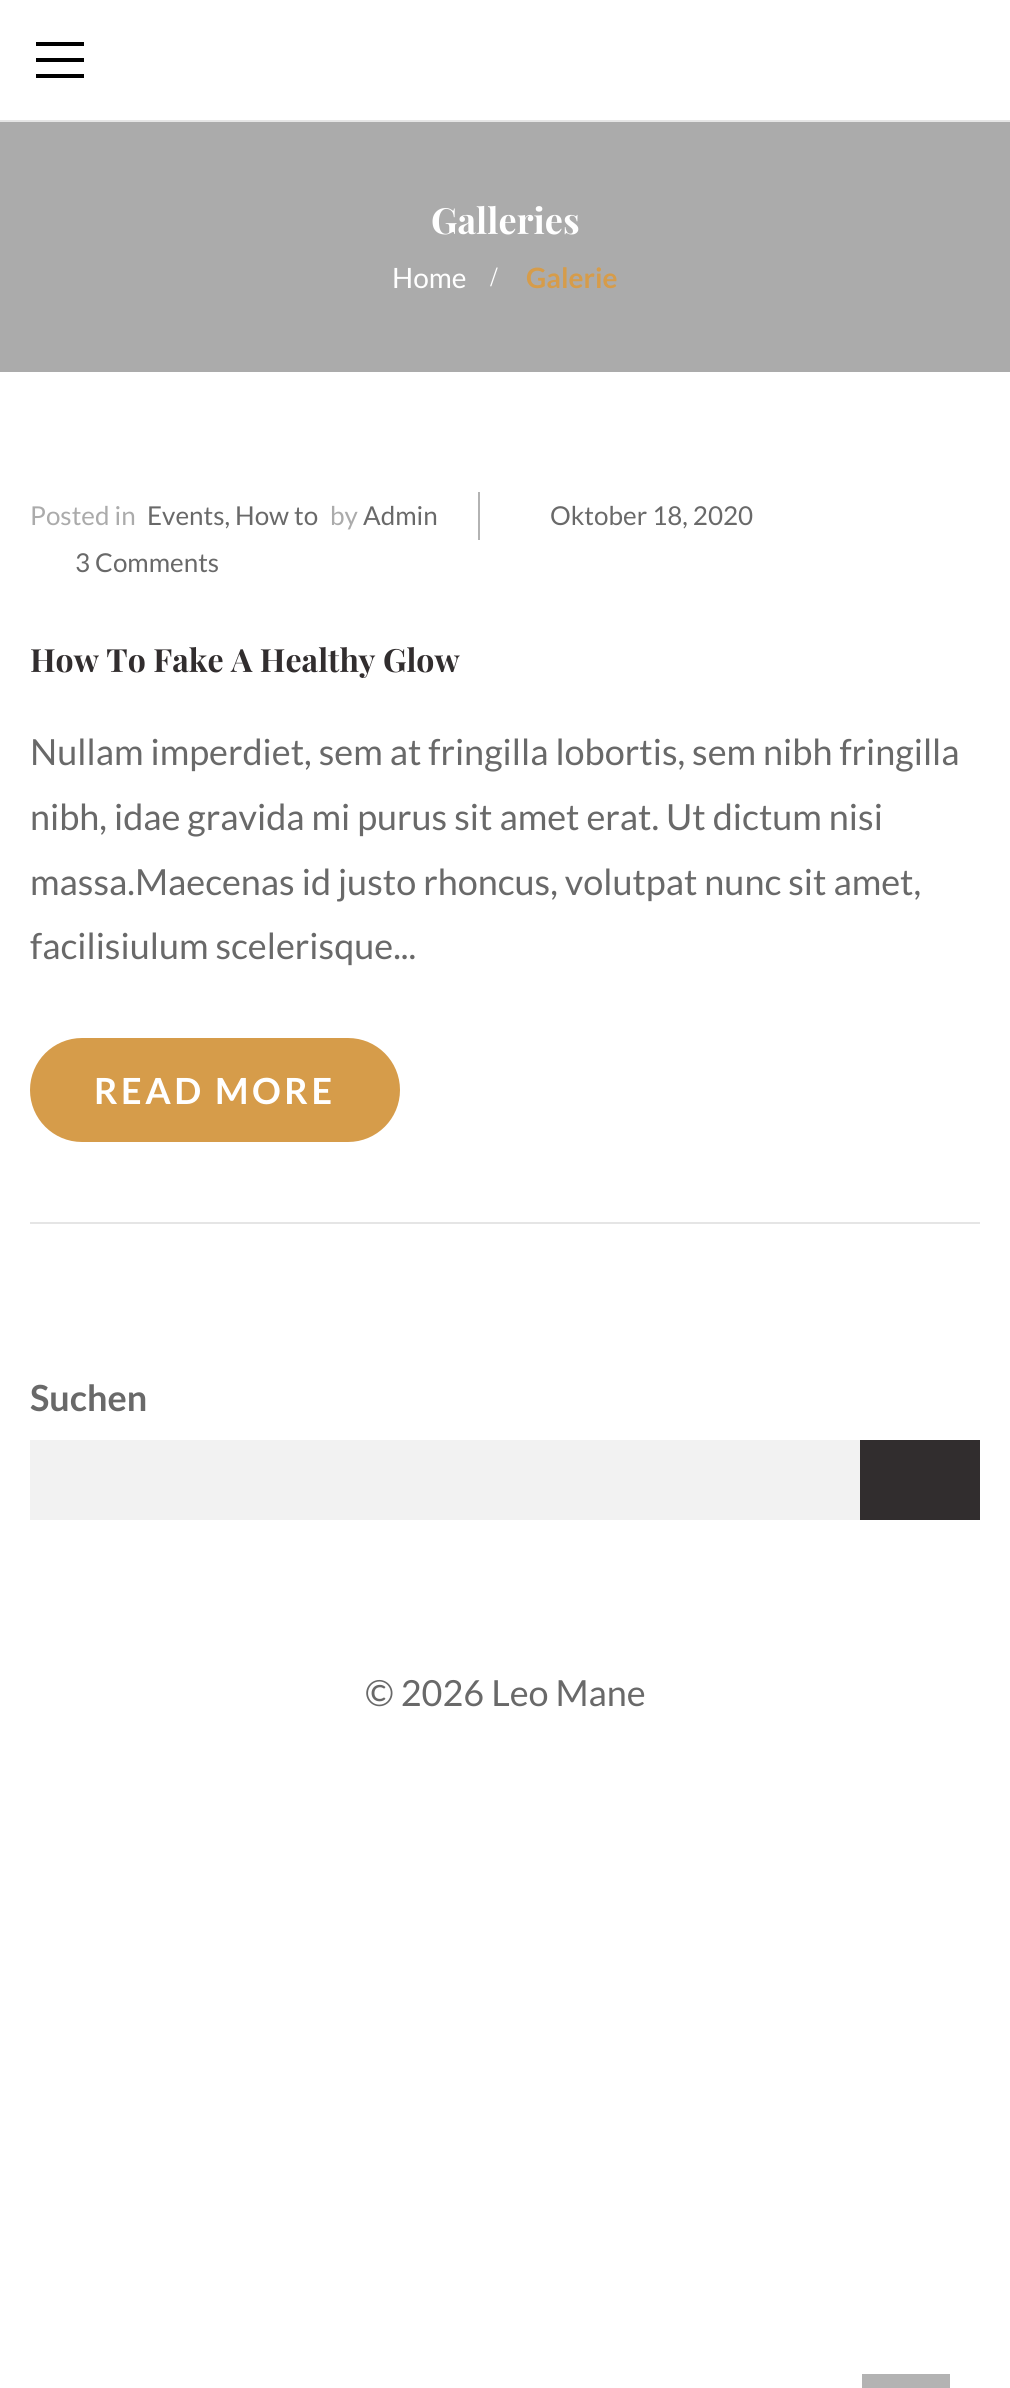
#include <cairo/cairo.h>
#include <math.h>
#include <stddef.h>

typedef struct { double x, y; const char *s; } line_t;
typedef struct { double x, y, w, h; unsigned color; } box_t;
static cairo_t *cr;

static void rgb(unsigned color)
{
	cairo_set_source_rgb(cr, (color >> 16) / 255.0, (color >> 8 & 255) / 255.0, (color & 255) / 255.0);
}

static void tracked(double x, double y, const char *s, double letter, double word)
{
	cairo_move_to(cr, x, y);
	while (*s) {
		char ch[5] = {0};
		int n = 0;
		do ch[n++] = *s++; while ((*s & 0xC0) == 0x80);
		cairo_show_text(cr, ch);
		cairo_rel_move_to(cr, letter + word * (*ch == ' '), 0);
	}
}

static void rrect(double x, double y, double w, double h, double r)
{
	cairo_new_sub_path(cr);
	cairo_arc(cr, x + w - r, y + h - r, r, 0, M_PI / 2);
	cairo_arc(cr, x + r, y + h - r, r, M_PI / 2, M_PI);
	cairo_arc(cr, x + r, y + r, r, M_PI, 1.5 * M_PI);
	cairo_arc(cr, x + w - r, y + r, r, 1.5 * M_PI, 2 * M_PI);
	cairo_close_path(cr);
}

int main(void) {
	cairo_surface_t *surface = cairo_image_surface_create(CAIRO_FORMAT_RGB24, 1010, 2388);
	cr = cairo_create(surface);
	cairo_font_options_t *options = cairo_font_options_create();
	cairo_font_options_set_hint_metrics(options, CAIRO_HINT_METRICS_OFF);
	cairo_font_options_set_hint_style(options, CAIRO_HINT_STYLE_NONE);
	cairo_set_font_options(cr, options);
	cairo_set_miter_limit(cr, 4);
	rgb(0xffffff);
	cairo_paint(cr);
	{
		static const box_t items[] = {
			{0, 120, 1010, 2, 0xe5e5e5},
			{36, 42, 48, 4, 0x000000},
			{36, 58, 48, 4, 0x000000},
			{36, 74, 48, 4, 0x000000},
			{0, 122, 1010, 250, 0xababab},
			{30, 1222, 950, 2, 0xe5e5e5},
			{478, 492, 2, 48, 0xb3b3b3},
		};
		for (size_t i = 0; i < sizeof items / sizeof *items; i++) {
			rgb(items[i].color);
			cairo_rectangle(cr, items[i].x, items[i].y, items[i].w, items[i].h);
			cairo_fill(cr);
		}
	}
	rgb(0xd69c4a);
	rrect(32, 1040, 366, 100, 50);
	cairo_fill_preserve(cr);
	cairo_set_line_width(cr, 4);
	cairo_stroke(cr);
	{
		static const box_t items[] = {
			{30, 1440, 830, 80, 0xf2f2f2},
			{860, 1440, 120, 80, 0x312d2e},
			{862, 2374, 88, 14, 0xb3b3b3},
		};
		for (size_t i = 0; i < sizeof items / sizeof *items; i++) {
			rgb(items[i].color);
			cairo_rectangle(cr, items[i].x, items[i].y, items[i].w, items[i].h);
			cairo_fill(cr);
		}
	}
	cairo_select_font_face(cr, "Playfair Display", CAIRO_FONT_SLANT_NORMAL, CAIRO_FONT_WEIGHT_BOLD);
	cairo_set_font_size(cr, 36);
	rgb(0xffffff);
	cairo_move_to(cr, 431, 234);
	cairo_show_text(cr, "Galleries");
	cairo_select_font_face(cr, "Lato", CAIRO_FONT_SLANT_NORMAL, CAIRO_FONT_WEIGHT_NORMAL);
	cairo_set_font_size(cr, 28);
	cairo_move_to(cr, 392, 288);
	cairo_show_text(cr, "Home");
	cairo_select_font_face(cr, "Liberation Serif", CAIRO_FONT_SLANT_NORMAL, CAIRO_FONT_WEIGHT_NORMAL);
	cairo_move_to(cr, 490, 286);
	cairo_show_text(cr, "/");
	cairo_select_font_face(cr, "Lato", CAIRO_FONT_SLANT_NORMAL, CAIRO_FONT_WEIGHT_BOLD);
	rgb(0xd69c4a);
	cairo_move_to(cr, 526, 288);
	cairo_show_text(cr, "Galerie");
	cairo_select_font_face(cr, "Lato", CAIRO_FONT_SLANT_NORMAL, CAIRO_FONT_WEIGHT_NORMAL);
	cairo_set_font_size(cr, 26);
	rgb(0xababab);
	cairo_move_to(cr, 30, 525);
	cairo_show_text(cr, "Posted in");
	rgb(0x696969);
	cairo_move_to(cr, 147, 525);
	cairo_show_text(cr, "Events, How to");
	rgb(0xababab);
	cairo_move_to(cr, 330, 525);
	cairo_show_text(cr, "by");
	rgb(0x696969);
	{
		static const line_t items[] = {
			{363, 525, "Admin"},
			{550, 525, "Oktober 18, 2020"},
			{75, 572, "3 Comments"},
		};
		for (size_t i = 0; i < sizeof items / sizeof *items; i++) {
			cairo_move_to(cr, items[i].x, items[i].y);
			cairo_show_text(cr, items[i].s);
		}
	}
	cairo_select_font_face(cr, "Playfair Display", CAIRO_FONT_SLANT_NORMAL, CAIRO_FONT_WEIGHT_BOLD);
	cairo_set_font_size(cr, 32);
	rgb(0x312d2e);
	cairo_move_to(cr, 30, 672);
	cairo_show_text(cr, "How To Fake A Healthy Glow");
	cairo_select_font_face(cr, "Lato", CAIRO_FONT_SLANT_NORMAL, CAIRO_FONT_WEIGHT_NORMAL);
	cairo_set_font_size(cr, 36);
	rgb(0x696969);
	{
		static const line_t items[] = {
			{30, 765, "Nullam imperdiet, sem at fringilla lobortis, sem nibh fringilla"},
			{30, 830, "nibh, idae gravida mi purus sit amet erat. Ut dictum nisi"},
			{30, 895, "massa.Maecenas id justo rhoncus, volutpat nunc sit amet,"},
			{30, 959, "facilisiulum scelerisque..."},
		};
		for (size_t i = 0; i < sizeof items / sizeof *items; i++) {
			cairo_move_to(cr, items[i].x, items[i].y);
			cairo_show_text(cr, items[i].s);
		}
	}
	cairo_select_font_face(cr, "Lato", CAIRO_FONT_SLANT_NORMAL, CAIRO_FONT_WEIGHT_BOLD);
	rgb(0xffffff);
	tracked(94, 1104, "READ MORE", 3.5, 0);
	rgb(0x696969);
	cairo_move_to(cr, 30, 1411);
	cairo_show_text(cr, "Suchen");
	cairo_select_font_face(cr, "Lato", CAIRO_FONT_SLANT_NORMAL, CAIRO_FONT_WEIGHT_NORMAL);
	cairo_move_to(cr, 365, 1706);
	cairo_show_text(cr, "© 2026 Leo Mane");
	cairo_surface_write_to_png(surface, "page.png");
	cairo_font_options_destroy(options);
	cairo_destroy(cr);
	cairo_surface_destroy(surface);
	return 0;
}
